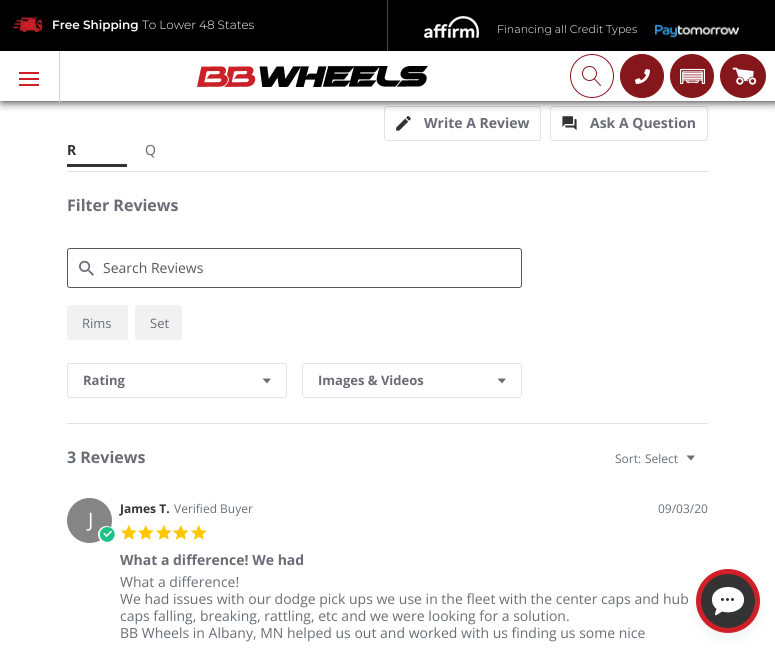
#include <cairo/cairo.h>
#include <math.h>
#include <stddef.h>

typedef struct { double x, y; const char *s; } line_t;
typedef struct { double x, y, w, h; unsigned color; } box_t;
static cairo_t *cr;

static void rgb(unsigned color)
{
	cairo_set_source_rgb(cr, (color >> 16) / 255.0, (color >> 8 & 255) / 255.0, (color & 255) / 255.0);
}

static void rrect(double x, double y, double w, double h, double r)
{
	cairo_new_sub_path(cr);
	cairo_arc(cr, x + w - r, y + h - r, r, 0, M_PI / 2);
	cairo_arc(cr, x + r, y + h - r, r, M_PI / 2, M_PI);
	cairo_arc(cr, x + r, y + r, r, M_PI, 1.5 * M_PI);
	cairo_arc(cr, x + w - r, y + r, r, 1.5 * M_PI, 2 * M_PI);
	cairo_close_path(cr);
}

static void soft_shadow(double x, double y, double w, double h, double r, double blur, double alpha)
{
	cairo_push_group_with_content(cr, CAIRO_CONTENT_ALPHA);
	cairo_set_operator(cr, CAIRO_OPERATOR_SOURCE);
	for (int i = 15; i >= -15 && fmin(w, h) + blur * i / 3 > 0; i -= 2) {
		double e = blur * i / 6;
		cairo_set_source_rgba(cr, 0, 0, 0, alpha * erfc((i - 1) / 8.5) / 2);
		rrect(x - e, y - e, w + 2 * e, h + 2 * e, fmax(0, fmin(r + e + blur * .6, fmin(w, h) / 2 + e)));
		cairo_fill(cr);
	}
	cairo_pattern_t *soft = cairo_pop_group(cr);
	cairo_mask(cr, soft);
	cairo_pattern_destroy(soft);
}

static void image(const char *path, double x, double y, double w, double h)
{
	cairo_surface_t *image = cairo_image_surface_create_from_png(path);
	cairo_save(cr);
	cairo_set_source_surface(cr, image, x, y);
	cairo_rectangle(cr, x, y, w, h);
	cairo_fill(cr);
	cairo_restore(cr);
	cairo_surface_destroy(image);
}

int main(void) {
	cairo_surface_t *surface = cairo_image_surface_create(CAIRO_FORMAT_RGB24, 775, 648);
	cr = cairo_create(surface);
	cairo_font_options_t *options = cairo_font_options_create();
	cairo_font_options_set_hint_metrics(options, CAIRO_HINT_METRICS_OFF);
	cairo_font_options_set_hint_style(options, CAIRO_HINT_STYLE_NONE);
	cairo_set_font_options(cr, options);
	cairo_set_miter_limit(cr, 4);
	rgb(0xffffff);
	cairo_paint(cr);
	rgb(0x000000);
	cairo_rectangle(cr, 0, 0, 775, 51);
	cairo_fill(cr);
	rrect(384.5, 106.5, 156, 34, 2.5);
	rgb(0xe3e3e3);
	cairo_set_line_width(cr, 1);
	cairo_stroke(cr);
	image("img/9.png", 396, 116, 15, 15);
	rrect(550.5, 106.5, 157, 34, 2.5);
	cairo_stroke(cr);
	image("img/10.png", 562, 116, 15, 15);
	cairo_save(cr);
	cairo_set_fill_rule(cr, CAIRO_FILL_RULE_EVEN_ODD);
	cairo_new_path(cr);
	cairo_move_to(cr, 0, 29);
	cairo_line_to(cr, 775, 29);
	cairo_line_to(cr, 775, 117);
	cairo_line_to(cr, 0, 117);
	cairo_close_path(cr);
	cairo_move_to(cr, 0, 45);
	cairo_line_to(cr, 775, 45);
	cairo_line_to(cr, 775, 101);
	cairo_line_to(cr, 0, 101);
	cairo_close_path(cr);
	cairo_clip(cr);
	rgb(0x000000);
	soft_shadow(2, 45, 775, 56, 0, 5, 1);
	cairo_restore(cr);
	rgb(0x444444);
	cairo_rectangle(cr, 387, 0, 1, 51);
	cairo_fill(cr);
	image("img/1.png", 13, 17, 30, 16);
	image("img/2.png", 424, 16, 55, 22);
	image("img/3.png", 655, 24, 84, 14);
	{
		static const box_t items[] = {
			{59, 51, 1, 52, 0xd1d1d1},
			{19, 72, 20, 2, 0xd01f27},
			{19, 78, 20, 2, 0xd01f27},
			{19, 84, 20, 2, 0xd01f27},
		};
		for (size_t i = 0; i < sizeof items / sizeof *items; i++) {
			rgb(items[i].color);
			cairo_rectangle(cr, items[i].x, items[i].y, items[i].w, items[i].h);
			cairo_fill(cr);
		}
	}
	image("img/4.png", 197, 66, 231, 21);
	cairo_arc(cr, 592, 76, 21.5, 0, 2 * M_PI);
	rgb(0x85161b);
	cairo_stroke(cr);
	image("img/5.png", 582, 66, 19, 20);
	cairo_arc(cr, 642, 76, 21.5, 0, 2 * M_PI);
	cairo_fill_preserve(cr);
	cairo_stroke(cr);
	image("img/6.png", 635, 69, 15, 15);
	cairo_arc(cr, 692, 76, 22, 0, 2 * M_PI);
	cairo_fill(cr);
	image("img/7.png", 680, 68, 25, 17);
	cairo_new_path(cr);
	cairo_move_to(cr, 743, 54);
	cairo_curve_to(cr, 755.5, 54, 766, 64, 766, 76);
	cairo_curve_to(cr, 766, 88, 755.5, 98, 743, 98);
	cairo_curve_to(cr, 730.5, 98, 720, 88, 720, 76);
	cairo_curve_to(cr, 720, 64, 730.5, 54, 743, 54);
	cairo_close_path(cr);
	cairo_fill(cr);
	image("img/8.png", 732, 67, 25, 18);
	{
		static const box_t items[] = {
			{67, 171, 641, 1, 0xe3e3e3},
			{67, 164, 60, 3, 0x333333},
			{67, 423, 641, 1, 0xe3e3e3},
		};
		for (size_t i = 0; i < sizeof items / sizeof *items; i++) {
			rgb(items[i].color);
			cairo_rectangle(cr, items[i].x, items[i].y, items[i].w, items[i].h);
			cairo_fill(cr);
		}
	}
	rrect(67.5, 248.5, 454, 39, 2.5);
	rgb(0x575757);
	cairo_stroke(cr);
	image("img/11.png", 79, 260, 15, 16);
	rgb(0xf1f1f1);
	rrect(67, 305, 61, 35, 3);
	cairo_fill(cr);
	rrect(135, 305, 47, 35, 3);
	cairo_fill(cr);
	rrect(67.5, 363.5, 219, 34, 2.5);
	rgb(0xe3e3e3);
	cairo_stroke(cr);
	rgb(0x6b6d76);
	cairo_new_path(cr);
	cairo_move_to(cr, 267, 383.5);
	cairo_line_to(cr, 262.5, 378.5);
	cairo_line_to(cr, 271, 378.5);
	cairo_close_path(cr);
	cairo_fill(cr);
	rrect(302.5, 363.5, 219, 34, 2.5);
	rgb(0xe3e3e3);
	cairo_stroke(cr);
	rgb(0x6b6d76);
	cairo_new_path(cr);
	cairo_move_to(cr, 502, 383.5);
	cairo_line_to(cr, 497.5, 378.5);
	cairo_line_to(cr, 506, 378.5);
	cairo_close_path(cr);
	cairo_fill(cr);
	cairo_new_path(cr);
	cairo_move_to(cr, 691, 460.5);
	cairo_line_to(cr, 686.5, 455.5);
	cairo_line_to(cr, 695, 455.5);
	cairo_close_path(cr);
	cairo_fill(cr);
	image("img/12.png", 121, 525, 16, 15);
	image("img/12.png", 138, 525, 16, 15);
	image("img/12.png", 156, 525, 16, 15);
	image("img/12.png", 173, 525, 16, 15);
	image("img/12.png", 191, 525, 16, 15);
	rgb(0x858585);
	cairo_arc(cr, 89.5, 520.5, 22.5, 0, 2 * M_PI);
	cairo_fill(cr);
	rgb(0xffffff);
	cairo_arc(cr, 106.5, 534.5, 8.5, 0, 2 * M_PI);
	cairo_fill(cr);
	image("img/13.png", 99, 527, 16, 15);
	rgb(0x4b677c);
	soft_shadow(700, 579, 56, 56, 28, 7.5, 0.13);
	rgb(0x333333);
	cairo_arc(cr, 728, 601, 29.5, 0, 2 * M_PI);
	cairo_fill_preserve(cr);
	rgb(0xd01f27);
	cairo_set_line_width(cr, 5);
	cairo_stroke(cr);
	image("img/14.png", 712, 587, 32, 29);
	cairo_select_font_face(cr, "Montserrat SemiBold", CAIRO_FONT_SLANT_NORMAL, CAIRO_FONT_WEIGHT_NORMAL);
	cairo_set_font_size(cr, 12);
	rgb(0xffffff);
	cairo_move_to(cr, 52, 29);
	cairo_show_text(cr, "Free Shipping");
	cairo_select_font_face(cr, "Montserrat Light", CAIRO_FONT_SLANT_NORMAL, CAIRO_FONT_WEIGHT_NORMAL);
	cairo_move_to(cr, 142, 29);
	cairo_show_text(cr, "To Lower 48 States");
	cairo_set_font_size(cr, 11);
	cairo_move_to(cr, 497, 33);
	cairo_show_text(cr, "Financing all Credit Types");
	cairo_select_font_face(cr, "Open Sans", CAIRO_FONT_SLANT_NORMAL, CAIRO_FONT_WEIGHT_BOLD);
	cairo_set_font_size(cr, 14);
	rgb(0x6b6d76);
	cairo_move_to(cr, 424, 128);
	cairo_show_text(cr, "Write A Review");
	cairo_move_to(cr, 590, 128);
	cairo_show_text(cr, "Ask A Question");
	cairo_select_font_face(cr, "Noto Sans", CAIRO_FONT_SLANT_NORMAL, CAIRO_FONT_WEIGHT_BOLD);
	rgb(0x333333);
	cairo_move_to(cr, 67, 155);
	cairo_show_text(cr, "R");
	cairo_select_font_face(cr, "Noto Sans", CAIRO_FONT_SLANT_NORMAL, CAIRO_FONT_WEIGHT_NORMAL);
	rgb(0x6b6d76);
	cairo_move_to(cr, 145, 155);
	cairo_show_text(cr, "Q");
	cairo_select_font_face(cr, "Open Sans", CAIRO_FONT_SLANT_NORMAL, CAIRO_FONT_WEIGHT_BOLD);
	cairo_set_font_size(cr, 16);
	cairo_move_to(cr, 67, 211);
	cairo_show_text(cr, "Filter Reviews");
	cairo_select_font_face(cr, "Open Sans", CAIRO_FONT_SLANT_NORMAL, CAIRO_FONT_WEIGHT_NORMAL);
	cairo_set_font_size(cr, 14);
	rgb(0x575757);
	cairo_move_to(cr, 103, 273);
	cairo_show_text(cr, "Search Reviews");
	cairo_set_font_size(cr, 13);
	rgb(0x6b6d76);
	cairo_move_to(cr, 82, 328);
	cairo_show_text(cr, "Rims");
	cairo_move_to(cr, 150, 328);
	cairo_show_text(cr, "Set");
	cairo_select_font_face(cr, "Open Sans", CAIRO_FONT_SLANT_NORMAL, CAIRO_FONT_WEIGHT_BOLD);
	cairo_move_to(cr, 83, 385);
	cairo_show_text(cr, "Rating");
	cairo_move_to(cr, 318, 385);
	cairo_show_text(cr, "Images & Videos");
	cairo_set_font_size(cr, 16);
	cairo_move_to(cr, 67, 463);
	cairo_show_text(cr, "3 Reviews");
	cairo_select_font_face(cr, "Open Sans", CAIRO_FONT_SLANT_NORMAL, CAIRO_FONT_WEIGHT_NORMAL);
	cairo_set_font_size(cr, 12);
	cairo_move_to(cr, 615, 463);
	cairo_show_text(cr, "Sort:");
	cairo_move_to(cr, 645, 463);
	cairo_show_text(cr, "Select");
	cairo_select_font_face(cr, "Open Sans", CAIRO_FONT_SLANT_NORMAL, CAIRO_FONT_WEIGHT_BOLD);
	rgb(0x333333);
	cairo_move_to(cr, 120, 513);
	cairo_show_text(cr, "James T.");
	cairo_select_font_face(cr, "Open Sans", CAIRO_FONT_SLANT_NORMAL, CAIRO_FONT_WEIGHT_NORMAL);
	rgb(0x6b6d76);
	cairo_move_to(cr, 174, 513);
	cairo_show_text(cr, "Verified Buyer");
	cairo_move_to(cr, 658, 513);
	cairo_show_text(cr, "09/03/20");
	cairo_set_font_size(cr, 20);
	rgb(0xffffff);
	cairo_move_to(cr, 88, 527);
	cairo_show_text(cr, "J");
	cairo_select_font_face(cr, "Open Sans", CAIRO_FONT_SLANT_NORMAL, CAIRO_FONT_WEIGHT_BOLD);
	cairo_set_font_size(cr, 14);
	rgb(0x6b6d76);
	cairo_move_to(cr, 120, 565);
	cairo_show_text(cr, "What a difference! We had");
	cairo_select_font_face(cr, "Open Sans", CAIRO_FONT_SLANT_NORMAL, CAIRO_FONT_WEIGHT_NORMAL);
	{
		static const line_t items[] = {
			{120, 587, "What a difference!"},
			{120, 604, "We had issues with our dodge pick ups we use in the fleet with the center caps and hub"},
			{120, 621, "caps falling, breaking, rattling, etc and we were looking for a solution."},
			{120, 638, "BB Wheels in Albany, MN helped us out and worked with us finding us some nice"},
		};
		for (size_t i = 0; i < sizeof items / sizeof *items; i++) {
			cairo_move_to(cr, items[i].x, items[i].y);
			cairo_show_text(cr, items[i].s);
		}
	}
	cairo_surface_write_to_png(surface, "page.png");
	cairo_font_options_destroy(options);
	cairo_destroy(cr);
	cairo_surface_destroy(surface);
	return 0;
}
